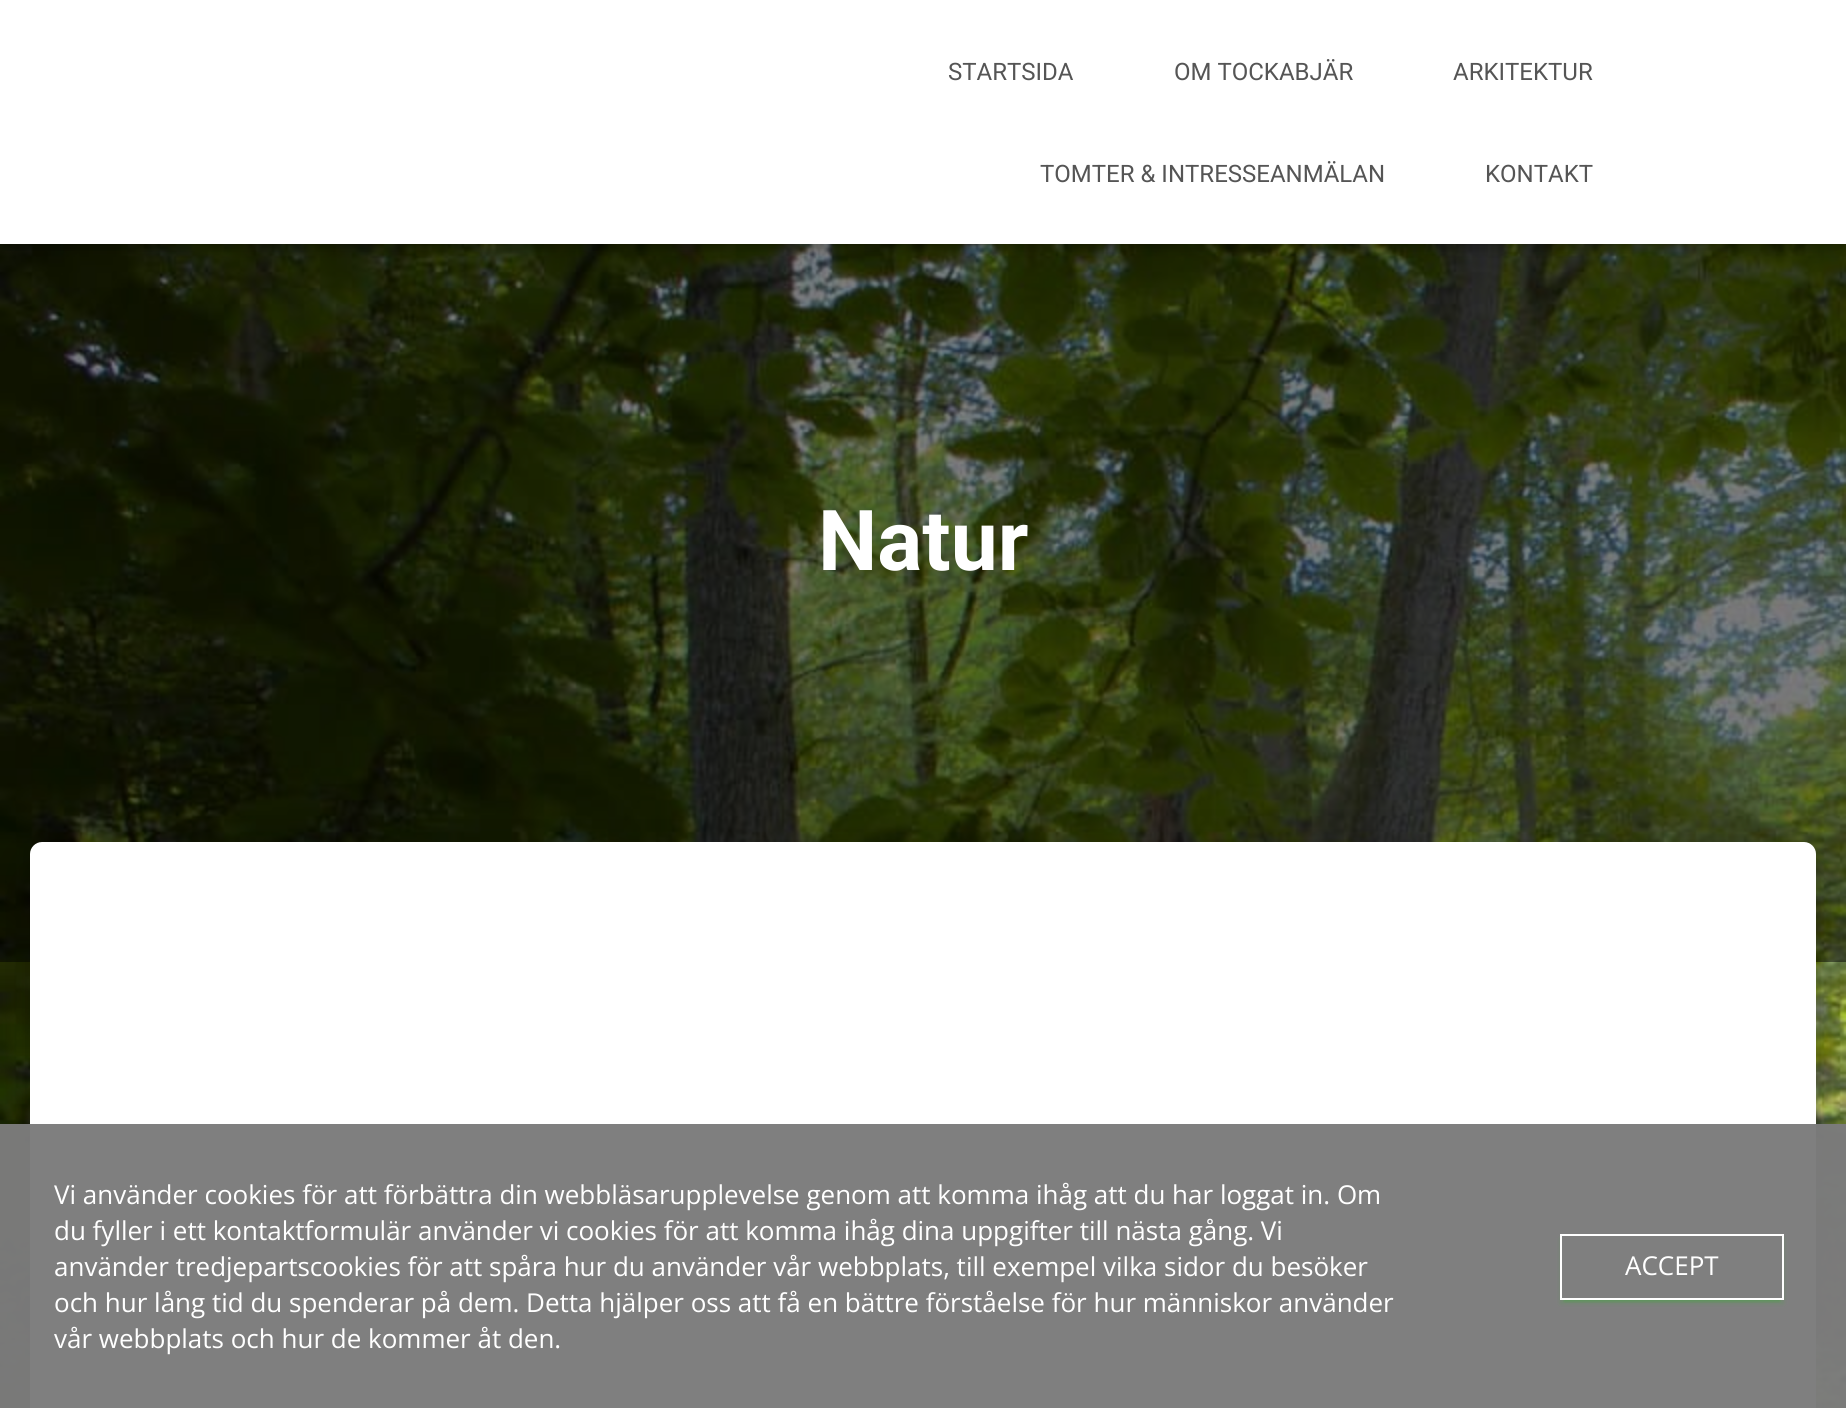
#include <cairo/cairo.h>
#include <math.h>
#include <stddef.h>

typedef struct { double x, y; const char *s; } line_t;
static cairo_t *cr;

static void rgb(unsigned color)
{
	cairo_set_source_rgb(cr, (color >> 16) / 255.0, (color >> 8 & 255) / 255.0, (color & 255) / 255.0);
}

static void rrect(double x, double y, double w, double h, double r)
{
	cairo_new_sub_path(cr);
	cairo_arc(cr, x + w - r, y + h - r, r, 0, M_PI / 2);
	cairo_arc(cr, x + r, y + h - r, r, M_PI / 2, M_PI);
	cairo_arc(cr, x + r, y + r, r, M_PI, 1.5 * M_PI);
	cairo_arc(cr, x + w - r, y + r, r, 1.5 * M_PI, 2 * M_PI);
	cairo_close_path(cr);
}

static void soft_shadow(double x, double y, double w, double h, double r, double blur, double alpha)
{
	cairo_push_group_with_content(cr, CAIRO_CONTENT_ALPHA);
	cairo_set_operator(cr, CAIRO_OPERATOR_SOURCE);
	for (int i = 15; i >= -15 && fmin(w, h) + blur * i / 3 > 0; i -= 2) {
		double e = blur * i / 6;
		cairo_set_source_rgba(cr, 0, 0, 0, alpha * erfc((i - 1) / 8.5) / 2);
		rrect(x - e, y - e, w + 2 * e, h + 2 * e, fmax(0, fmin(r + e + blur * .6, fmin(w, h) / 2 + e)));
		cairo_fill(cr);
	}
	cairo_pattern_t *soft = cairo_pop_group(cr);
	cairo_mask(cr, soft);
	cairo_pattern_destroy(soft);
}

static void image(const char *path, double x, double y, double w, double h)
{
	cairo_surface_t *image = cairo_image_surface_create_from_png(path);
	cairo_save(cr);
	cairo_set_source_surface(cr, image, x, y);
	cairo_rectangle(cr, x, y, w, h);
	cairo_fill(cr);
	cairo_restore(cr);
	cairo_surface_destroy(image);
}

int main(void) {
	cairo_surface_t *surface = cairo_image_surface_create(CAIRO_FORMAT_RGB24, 1846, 1408);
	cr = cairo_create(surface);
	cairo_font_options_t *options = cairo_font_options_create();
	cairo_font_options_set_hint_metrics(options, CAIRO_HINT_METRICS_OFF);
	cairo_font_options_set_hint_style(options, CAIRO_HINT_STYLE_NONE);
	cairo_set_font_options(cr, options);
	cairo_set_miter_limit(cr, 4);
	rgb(0xffffff);
	cairo_paint(cr);
	image("img/1.png", 0, 244, 1846, 1164);
	cairo_set_source_rgba(cr, 0, 0, 0, 0.5);
	cairo_rectangle(cr, 0, 244, 1846, 718);
	cairo_fill(cr);
	rgb(0x000000);
	soft_shadow(4, 12, 1838, 236, 0, 5, 0.1);
	soft_shadow(0, 2, 1846, 244, 0, 10, 0.12);
	soft_shadow(12, 14, 1822, 220, 0, 10, 0.42);
	rgb(0xffffff);
	cairo_rectangle(cr, 0, 0, 1846, 244);
	cairo_fill(cr);
	rgb(0x000000);
	soft_shadow(40, 868, 1766, 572, 2, 10, 0.2);
	soft_shadow(20, 844, 1806, 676, 22, 30, 0.12);
	soft_shadow(26, 870, 1794, 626, 16, 24, 0.14);
	rgb(0xffffff);
	cairo_new_path(cr);
	cairo_move_to(cr, 42, 842);
	cairo_line_to(cr, 1804, 842);
	cairo_curve_to(cr, 1810.5, 842, 1816, 847.5, 1816, 854);
	cairo_line_to(cr, 1816, 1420);
	cairo_line_to(cr, 30, 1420);
	cairo_line_to(cr, 30, 854);
	cairo_curve_to(cr, 30, 847.5, 35.5, 842, 42, 842);
	cairo_close_path(cr);
	cairo_fill(cr);
	cairo_set_source_rgba(cr, 0.486, 0.486, 0.486, 0.97);
	cairo_rectangle(cr, 0, 1124, 1846, 284);
	cairo_fill(cr);
	cairo_save(cr);
	cairo_rectangle(cr, 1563, 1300, 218, 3);
	cairo_clip(cr);
	rgb(0x1ebc15);
	soft_shadow(1564, 1244, 216, 58, 0, 1, 0.2);
	cairo_restore(cr);
	cairo_save(cr);
	cairo_set_fill_rule(cr, CAIRO_FILL_RULE_EVEN_ODD);
	cairo_new_path(cr);
	cairo_move_to(cr, 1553, 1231);
	cairo_line_to(cr, 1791, 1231);
	cairo_line_to(cr, 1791, 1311);
	cairo_line_to(cr, 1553, 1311);
	cairo_close_path(cr);
	cairo_move_to(cr, 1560, 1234);
	cairo_line_to(cr, 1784, 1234);
	cairo_line_to(cr, 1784, 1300);
	cairo_line_to(cr, 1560, 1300);
	cairo_close_path(cr);
	cairo_clip(cr);
	rgb(0x1ebc15);
	soft_shadow(1560, 1238, 224, 66, 0, 2, 0.14);
	cairo_restore(cr);
	cairo_rectangle(cr, 1561, 1235, 222, 64);
	rgb(0xffffff);
	cairo_stroke(cr);
	cairo_select_font_face(cr, "Roboto", CAIRO_FONT_SLANT_NORMAL, CAIRO_FONT_WEIGHT_NORMAL);
	cairo_set_font_size(cr, 24);
	rgb(0x555555);
	{
		static const line_t items[] = {
			{948, 80, "STARTSIDA"},
			{1174, 80, "OM TOCKABJÄR"},
			{1453, 80, "ARKITEKTUR"},
			{1040, 182, "TOMTER & INTRESSEANMÄLAN"},
			{1485, 182, "KONTAKT"},
		};
		for (size_t i = 0; i < sizeof items / sizeof *items; i++) {
			cairo_move_to(cr, items[i].x, items[i].y);
			cairo_show_text(cr, items[i].s);
		}
	}
	cairo_select_font_face(cr, "Roboto", CAIRO_FONT_SLANT_NORMAL, CAIRO_FONT_WEIGHT_BOLD);
	cairo_set_font_size(cr, 84);
	rgb(0xffffff);
	cairo_move_to(cr, 818, 570);
	cairo_show_text(cr, "Natur");
	cairo_select_font_face(cr, "Open Sans", CAIRO_FONT_SLANT_NORMAL, CAIRO_FONT_WEIGHT_NORMAL);
	cairo_set_font_size(cr, 26);
	{
		static const line_t items[] = {
			{54, 1204, "Vi använder cookies för att förbättra din webbläsarupplevelse genom att komma ihåg att du har loggat in. Om"},
			{54, 1240, "du fyller i ett kontaktformulär använder vi cookies för att komma ihåg dina uppgifter till nästa gång. Vi"},
			{54, 1276, "använder tredjepartscookies för att spåra hur du använder vår webbplats, till exempel vilka sidor du besöker"},
			{54, 1312, "och hur lång tid du spenderar på dem. Detta hjälper oss att få en bättre förståelse för hur människor använder"},
			{54, 1348, "vår webbplats och hur de kommer åt den."},
			{1625, 1275, "ACCEPT"},
		};
		for (size_t i = 0; i < sizeof items / sizeof *items; i++) {
			cairo_move_to(cr, items[i].x, items[i].y);
			cairo_show_text(cr, items[i].s);
		}
	}
	cairo_surface_write_to_png(surface, "page.png");
	cairo_font_options_destroy(options);
	cairo_destroy(cr);
	cairo_surface_destroy(surface);
	return 0;
}
